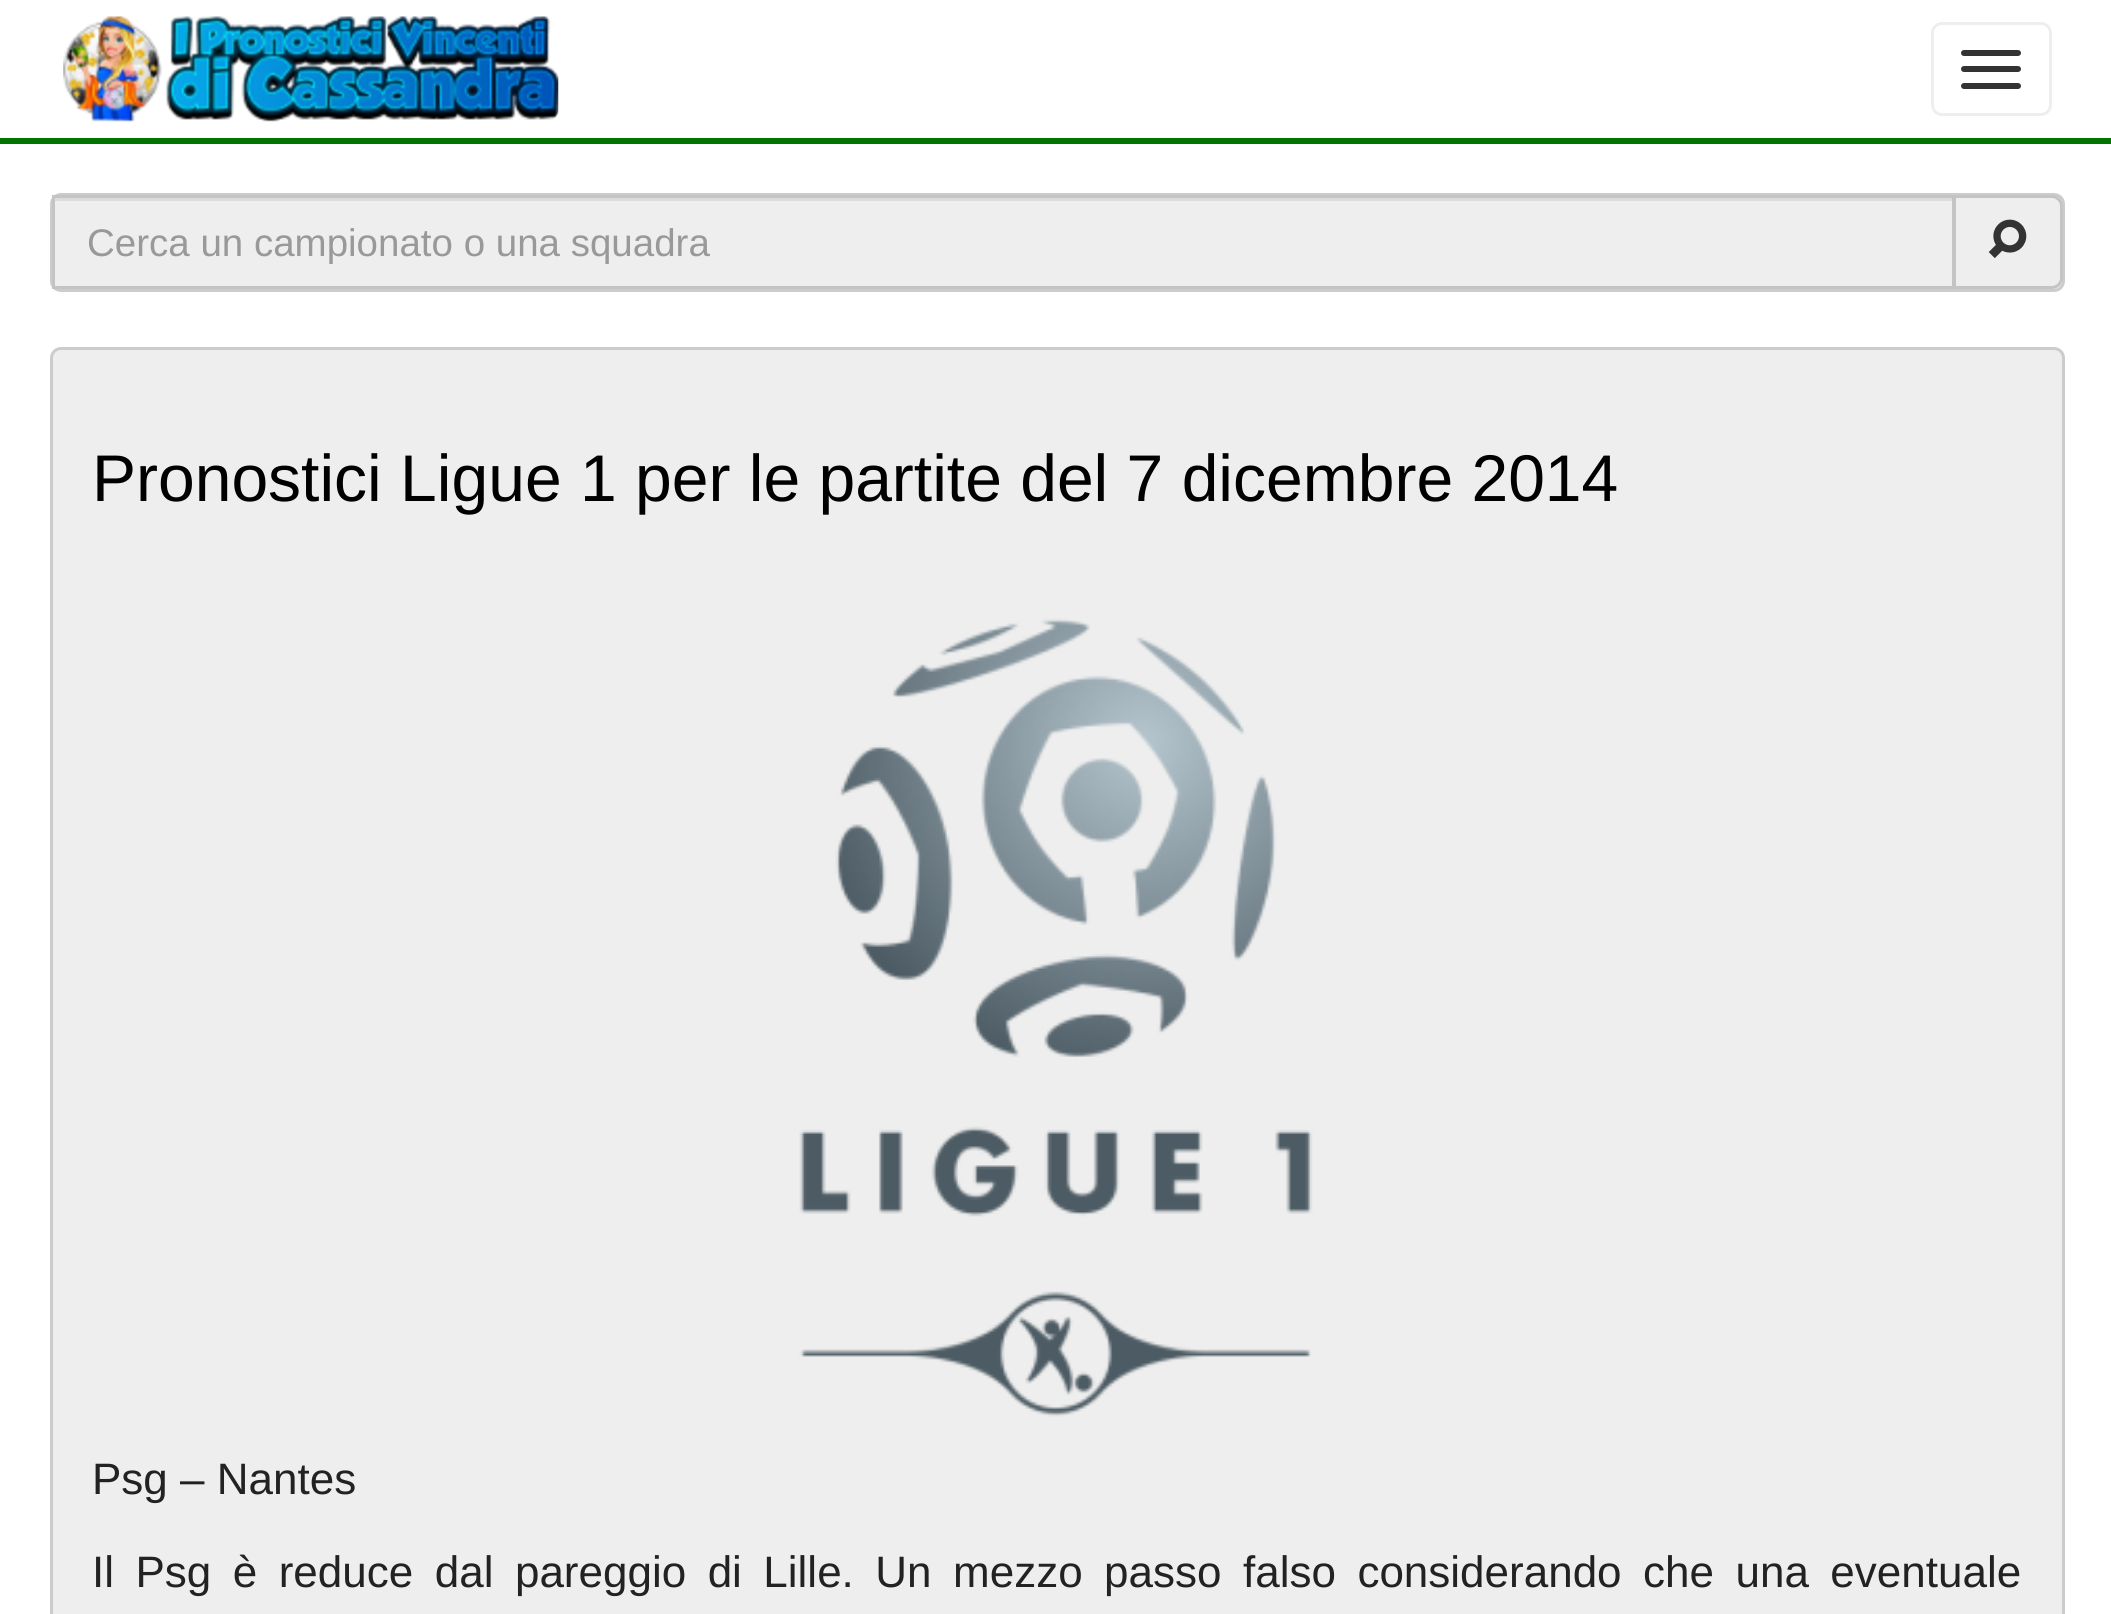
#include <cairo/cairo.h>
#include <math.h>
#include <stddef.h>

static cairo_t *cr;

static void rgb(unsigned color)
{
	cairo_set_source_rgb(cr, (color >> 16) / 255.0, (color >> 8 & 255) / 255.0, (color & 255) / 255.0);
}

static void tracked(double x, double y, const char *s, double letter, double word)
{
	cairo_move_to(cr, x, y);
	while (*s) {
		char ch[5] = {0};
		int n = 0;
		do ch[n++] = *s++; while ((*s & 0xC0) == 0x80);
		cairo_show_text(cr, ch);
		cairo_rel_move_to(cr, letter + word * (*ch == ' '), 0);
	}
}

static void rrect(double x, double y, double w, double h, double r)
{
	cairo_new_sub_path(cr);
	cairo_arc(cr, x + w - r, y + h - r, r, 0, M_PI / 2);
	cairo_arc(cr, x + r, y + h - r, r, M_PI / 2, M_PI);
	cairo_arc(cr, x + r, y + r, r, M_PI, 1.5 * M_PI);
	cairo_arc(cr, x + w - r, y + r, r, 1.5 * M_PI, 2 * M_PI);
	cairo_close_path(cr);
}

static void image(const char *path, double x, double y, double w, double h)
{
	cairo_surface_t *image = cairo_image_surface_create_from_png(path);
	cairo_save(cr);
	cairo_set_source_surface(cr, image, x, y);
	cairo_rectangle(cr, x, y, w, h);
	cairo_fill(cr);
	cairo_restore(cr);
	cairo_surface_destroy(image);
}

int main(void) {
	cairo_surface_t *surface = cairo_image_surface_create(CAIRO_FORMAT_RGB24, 2111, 1614);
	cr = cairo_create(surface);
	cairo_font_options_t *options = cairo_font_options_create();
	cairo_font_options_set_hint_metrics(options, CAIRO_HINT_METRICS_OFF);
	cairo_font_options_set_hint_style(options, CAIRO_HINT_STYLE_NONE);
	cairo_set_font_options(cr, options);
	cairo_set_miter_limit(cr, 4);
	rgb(0xffffff);
	cairo_paint(cr);
	rgb(0x007500);
	cairo_rectangle(cr, 0, 138, 2111, 6);
	cairo_fill(cr);
	image("img/1.png", 63, 16, 496, 106);
	rrect(1932.5, 23.5, 118, 91, 9.5);
	rgb(0xeeeeee);
	cairo_set_line_width(cr, 3);
	cairo_stroke(cr);
	rgb(0x333333);
	rrect(1961, 50, 60, 6, 3);
	cairo_fill(cr);
	rrect(1961, 66, 60, 6, 3);
	cairo_fill(cr);
	rrect(1961, 83, 60, 6, 3);
	cairo_fill(cr);
	rgb(0xeeeeee);
	rrect(51.5, 194.5, 2012, 96, 9.5);
	cairo_fill_preserve(cr);
	rgb(0xcccccc);
	cairo_stroke(cr);
	rgb(0xdcdcdc);
	cairo_rectangle(cr, 55, 198, 1898, 3);
	cairo_fill(cr);
	rgb(0xeeeeee);
	cairo_new_path(cr);
	cairo_move_to(cr, 1954.5, 196.5);
	cairo_line_to(cr, 2052, 196.5);
	cairo_curve_to(cr, 2057, 196.5, 2061.5, 201, 2061.5, 206);
	cairo_line_to(cr, 2061.5, 278);
	cairo_curve_to(cr, 2061.5, 283, 2057, 287.5, 2052, 287.5);
	cairo_line_to(cr, 1954.5, 287.5);
	cairo_close_path(cr);
	cairo_fill_preserve(cr);
	rgb(0xc4c4c4);
	cairo_stroke(cr);
	cairo_rectangle(cr, 53.5, 196.5, 1900, 91);
	cairo_stroke(cr);
	image("img/2.png", 1988, 219, 39, 40);
	rgb(0xeeeeee);
	rrect(51.5, 348.5, 2012, 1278, 9.5);
	cairo_fill_preserve(cr);
	rgb(0xcccccc);
	cairo_stroke(cr);
	image("img/3.png", 799, 618, 514, 799);
	cairo_select_font_face(cr, "Liberation Sans", CAIRO_FONT_SLANT_NORMAL, CAIRO_FONT_WEIGHT_NORMAL);
	cairo_set_font_size(cr, 38.5);
	rgb(0x999999);
	cairo_move_to(cr, 87, 256);
	cairo_show_text(cr, "Cerca un campionato o una squadra");
	cairo_set_font_size(cr, 66);
	rgb(0x000000);
	cairo_move_to(cr, 92, 501);
	cairo_show_text(cr, "Pronostici Ligue 1 per le partite del 7 dicembre 2014");
	cairo_set_font_size(cr, 44);
	rgb(0x222222);
	cairo_move_to(cr, 92, 1494);
	cairo_show_text(cr, "Psg – Nantes");
	tracked(92, 1587, "Il Psg è reduce dal pareggio di Lille. Un mezzo passo falso considerando che una eventuale", 0, 9.25);
	cairo_surface_write_to_png(surface, "page.png");
	cairo_font_options_destroy(options);
	cairo_destroy(cr);
	cairo_surface_destroy(surface);
	return 0;
}
